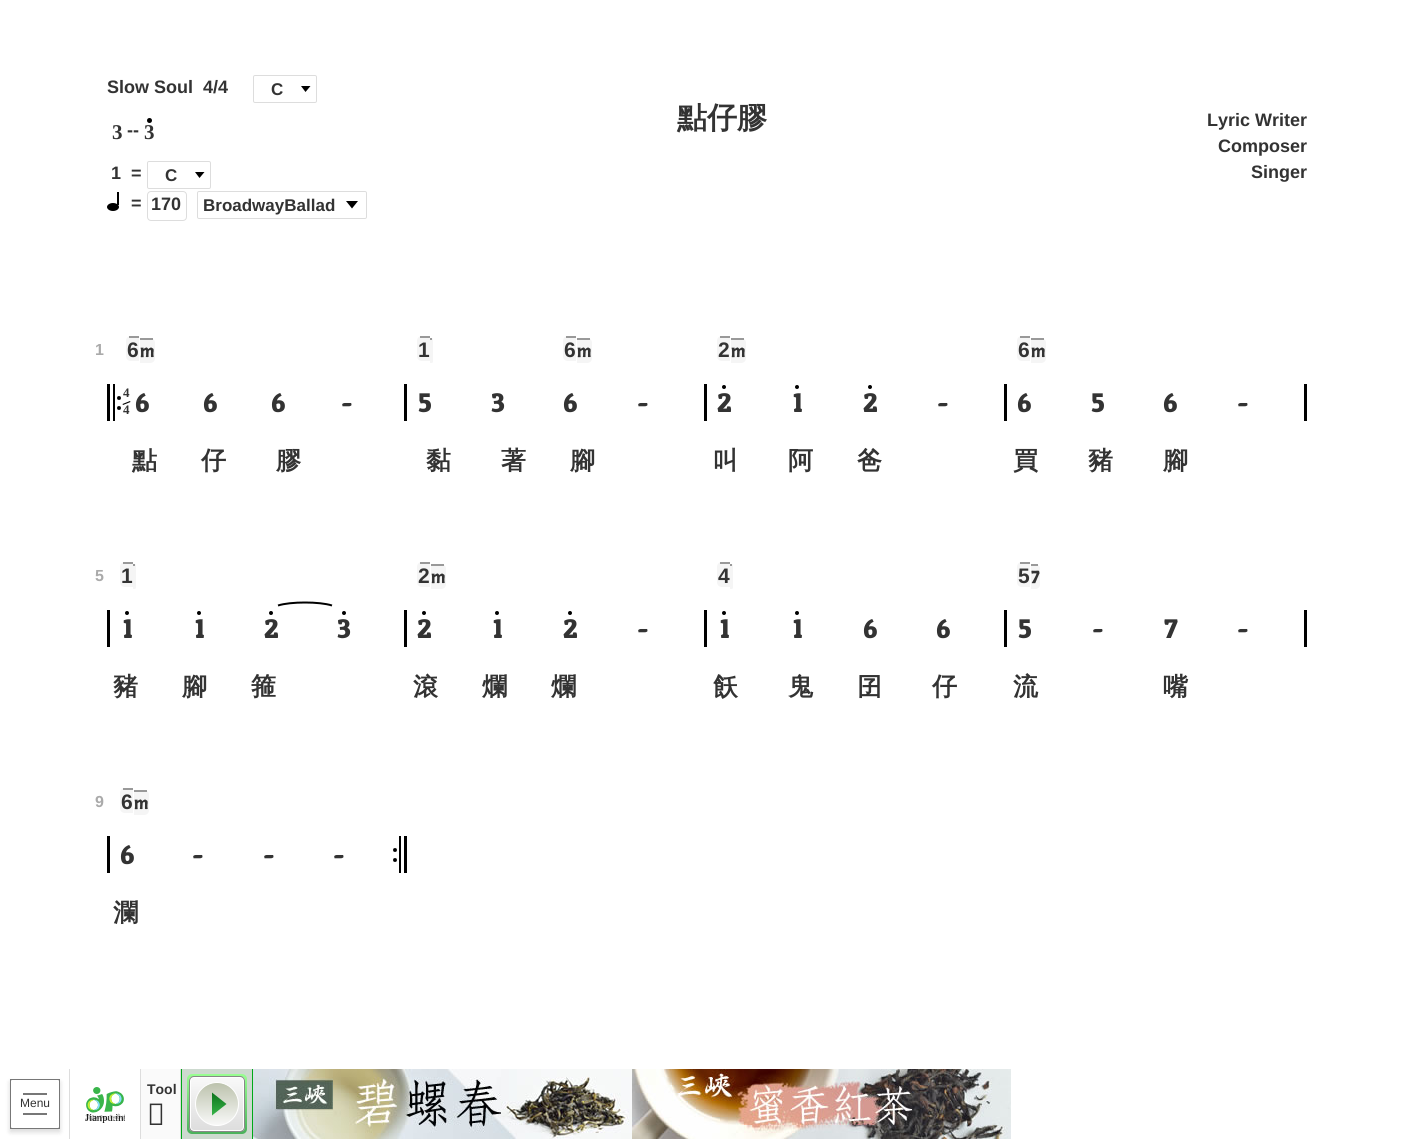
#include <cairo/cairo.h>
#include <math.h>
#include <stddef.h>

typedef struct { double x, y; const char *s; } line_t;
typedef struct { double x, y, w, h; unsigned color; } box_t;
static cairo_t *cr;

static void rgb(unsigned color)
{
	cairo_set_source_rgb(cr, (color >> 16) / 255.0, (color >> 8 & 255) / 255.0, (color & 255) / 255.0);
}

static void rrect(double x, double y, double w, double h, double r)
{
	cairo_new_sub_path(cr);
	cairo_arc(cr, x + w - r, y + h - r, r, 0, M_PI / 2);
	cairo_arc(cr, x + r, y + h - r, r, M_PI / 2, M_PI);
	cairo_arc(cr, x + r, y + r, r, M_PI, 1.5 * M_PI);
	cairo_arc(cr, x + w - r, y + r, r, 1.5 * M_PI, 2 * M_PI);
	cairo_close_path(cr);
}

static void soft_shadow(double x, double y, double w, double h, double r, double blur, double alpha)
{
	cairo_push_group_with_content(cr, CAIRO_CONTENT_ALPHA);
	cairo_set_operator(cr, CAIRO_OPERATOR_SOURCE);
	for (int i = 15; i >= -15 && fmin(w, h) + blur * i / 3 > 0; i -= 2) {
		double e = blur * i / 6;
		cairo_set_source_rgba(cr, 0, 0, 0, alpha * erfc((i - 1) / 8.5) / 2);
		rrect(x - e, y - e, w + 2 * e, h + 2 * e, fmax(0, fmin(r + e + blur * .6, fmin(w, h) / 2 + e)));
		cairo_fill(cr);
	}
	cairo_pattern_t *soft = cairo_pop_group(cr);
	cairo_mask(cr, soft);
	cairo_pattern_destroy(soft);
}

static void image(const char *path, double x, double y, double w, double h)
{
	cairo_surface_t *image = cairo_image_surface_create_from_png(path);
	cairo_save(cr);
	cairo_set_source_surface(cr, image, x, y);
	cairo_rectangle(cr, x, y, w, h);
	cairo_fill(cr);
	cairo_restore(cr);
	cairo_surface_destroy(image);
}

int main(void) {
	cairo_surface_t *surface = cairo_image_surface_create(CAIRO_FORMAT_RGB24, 1414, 1139);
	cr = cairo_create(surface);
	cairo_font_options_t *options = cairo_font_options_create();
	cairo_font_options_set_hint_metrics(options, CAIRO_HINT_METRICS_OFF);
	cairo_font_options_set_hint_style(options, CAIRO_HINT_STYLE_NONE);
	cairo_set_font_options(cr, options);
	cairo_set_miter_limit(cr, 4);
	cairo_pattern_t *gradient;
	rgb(0xffffff);
	cairo_paint(cr);
	rgb(0x000000);
	cairo_new_path(cr);
	cairo_move_to(cr, 305.5, 92);
	cairo_line_to(cr, 310.5, 86);
	cairo_line_to(cr, 301, 86);
	cairo_close_path(cr);
	cairo_fill(cr);
	rrect(253.5, 75.5, 63, 27, 1.5);
	rgb(0xdddddd);
	cairo_set_line_width(cr, 1);
	cairo_stroke(cr);
	rgb(0x000000);
	cairo_arc(cr, 149.5, 120.5, 2.5, 0, 2 * M_PI);
	cairo_fill(cr);
	cairo_new_path(cr);
	cairo_move_to(cr, 199.5, 178);
	cairo_line_to(cr, 204.5, 172);
	cairo_line_to(cr, 195, 172);
	cairo_close_path(cr);
	cairo_fill(cr);
	rrect(147.5, 161.5, 63, 27, 1.5);
	rgb(0xdddddd);
	cairo_stroke(cr);
	rgb(0x000000);
	cairo_new_path(cr);
	cairo_move_to(cr, 113, 203);
	cairo_curve_to(cr, 116.5, 203, 119, 205, 119, 207);
	cairo_curve_to(cr, 119, 209, 116.5, 211, 113, 211);
	cairo_curve_to(cr, 109.5, 211, 107, 209, 107, 207);
	cairo_curve_to(cr, 107, 205, 109.5, 203, 113, 203);
	cairo_close_path(cr);
	cairo_fill(cr);
	cairo_rectangle(cr, 117, 192, 2, 13);
	cairo_fill(cr);
	rrect(147.5, 191.5, 39, 29, 3.5);
	rgb(0xdddddd);
	cairo_stroke(cr);
	rgb(0x000000);
	cairo_new_path(cr);
	cairo_move_to(cr, 352, 208.5);
	cairo_line_to(cr, 358, 201);
	cairo_line_to(cr, 346, 201);
	cairo_close_path(cr);
	cairo_fill(cr);
	rrect(197.5, 191.5, 169, 27, 1.5);
	rgb(0xdddddd);
	cairo_stroke(cr);
	rgb(0xf5f5f5);
	cairo_new_path(cr);
	cairo_move_to(cr, 131, 336);
	cairo_line_to(cr, 139, 336);
	cairo_line_to(cr, 139, 361);
	cairo_line_to(cr, 131, 361);
	cairo_curve_to(cr, 128, 361, 126, 359, 126, 356);
	cairo_line_to(cr, 126, 341);
	cairo_curve_to(cr, 126, 338, 128, 336, 131, 336);
	cairo_close_path(cr);
	cairo_fill(cr);
	rgb(0x999999);
	cairo_rectangle(cr, 129, 336, 10, 2);
	cairo_fill(cr);
	rgb(0xf5f5f5);
	cairo_new_path(cr);
	cairo_move_to(cr, 140, 338);
	cairo_line_to(cr, 150, 338);
	cairo_curve_to(cr, 153, 338, 155, 340, 155, 343);
	cairo_line_to(cr, 155, 358);
	cairo_curve_to(cr, 155, 361, 153, 363, 150, 363);
	cairo_line_to(cr, 140, 363);
	cairo_close_path(cr);
	cairo_fill(cr);
	{
		static const box_t items[] = {
			{140, 338, 13, 2, 0x999999},
			{404, 384, 3, 37, 0x000000},
			{107, 384, 3, 37, 0x000000},
			{113, 384, 2, 37, 0x000000},
		};
		for (size_t i = 0; i < sizeof items / sizeof *items; i++) {
			rgb(items[i].color);
			cairo_rectangle(cr, items[i].x, items[i].y, items[i].w, items[i].h);
			cairo_fill(cr);
		}
	}
	image("img/1.png", 117, 396, 4, 14);
	cairo_new_path(cr);
	cairo_move_to(cr, 130, 401);
	cairo_line_to(cr, 130.5, 402);
	cairo_line_to(cr, 123, 405);
	cairo_line_to(cr, 122.5, 404);
	cairo_close_path(cr);
	cairo_fill(cr);
	rgb(0xf5f5f5);
	cairo_new_path(cr);
	cairo_move_to(cr, 422, 336);
	cairo_line_to(cr, 430, 336);
	cairo_line_to(cr, 430, 361);
	cairo_line_to(cr, 422, 361);
	cairo_curve_to(cr, 419, 361, 417, 359, 417, 356);
	cairo_line_to(cr, 417, 341);
	cairo_curve_to(cr, 417, 338, 419, 336, 422, 336);
	cairo_close_path(cr);
	cairo_fill(cr);
	rgb(0x999999);
	cairo_rectangle(cr, 420, 336, 10, 2);
	cairo_fill(cr);
	rgb(0xf5f5f5);
	cairo_new_path(cr);
	cairo_move_to(cr, 430, 338);
	cairo_line_to(cr, 431.5, 338);
	cairo_curve_to(cr, 432.5, 338, 433, 338.5, 433, 339.5);
	cairo_line_to(cr, 433, 361.5);
	cairo_curve_to(cr, 433, 362.5, 432.5, 363, 431.5, 363);
	cairo_line_to(cr, 430, 363);
	cairo_close_path(cr);
	cairo_fill(cr);
	rgb(0x999999);
	cairo_rectangle(cr, 430, 338, 2, 2);
	cairo_fill(cr);
	rgb(0xf5f5f5);
	cairo_new_path(cr);
	cairo_move_to(cr, 568, 336);
	cairo_line_to(cr, 576, 336);
	cairo_line_to(cr, 576, 361);
	cairo_line_to(cr, 568, 361);
	cairo_curve_to(cr, 565, 361, 563, 359, 563, 356);
	cairo_line_to(cr, 563, 341);
	cairo_curve_to(cr, 563, 338, 565, 336, 568, 336);
	cairo_close_path(cr);
	cairo_fill(cr);
	rgb(0x999999);
	cairo_rectangle(cr, 566, 336, 10, 2);
	cairo_fill(cr);
	rgb(0xf5f5f5);
	cairo_new_path(cr);
	cairo_move_to(cr, 577, 338);
	cairo_line_to(cr, 587, 338);
	cairo_curve_to(cr, 590, 338, 592, 340, 592, 343);
	cairo_line_to(cr, 592, 358);
	cairo_curve_to(cr, 592, 361, 590, 363, 587, 363);
	cairo_line_to(cr, 577, 363);
	cairo_close_path(cr);
	cairo_fill(cr);
	rgb(0x999999);
	cairo_rectangle(cr, 577, 338, 13, 2);
	cairo_fill(cr);
	rgb(0x000000);
	cairo_rectangle(cr, 704, 384, 3, 37);
	cairo_fill(cr);
	rgb(0xf5f5f5);
	cairo_new_path(cr);
	cairo_move_to(cr, 722, 336);
	cairo_line_to(cr, 730, 336);
	cairo_line_to(cr, 730, 361);
	cairo_line_to(cr, 722, 361);
	cairo_curve_to(cr, 719, 361, 717, 359, 717, 356);
	cairo_line_to(cr, 717, 341);
	cairo_curve_to(cr, 717, 338, 719, 336, 722, 336);
	cairo_close_path(cr);
	cairo_fill(cr);
	rgb(0x999999);
	cairo_rectangle(cr, 720, 336, 10, 2);
	cairo_fill(cr);
	rgb(0xf5f5f5);
	cairo_new_path(cr);
	cairo_move_to(cr, 731, 338);
	cairo_line_to(cr, 741, 338);
	cairo_curve_to(cr, 744, 338, 746, 340, 746, 343);
	cairo_line_to(cr, 746, 358);
	cairo_curve_to(cr, 746, 361, 744, 363, 741, 363);
	cairo_line_to(cr, 731, 363);
	cairo_close_path(cr);
	cairo_fill(cr);
	rgb(0x999999);
	cairo_rectangle(cr, 731, 338, 13, 2);
	cairo_fill(cr);
	rgb(0x000000);
	cairo_rectangle(cr, 1004, 384, 3, 37);
	cairo_fill(cr);
	cairo_arc(cr, 724, 387, 2, 0, 2 * M_PI);
	cairo_fill(cr);
	cairo_arc(cr, 797, 387, 2, 0, 2 * M_PI);
	cairo_fill(cr);
	cairo_arc(cr, 870, 387, 2, 0, 2 * M_PI);
	cairo_fill(cr);
	rgb(0xf5f5f5);
	cairo_new_path(cr);
	cairo_move_to(cr, 1022, 336);
	cairo_line_to(cr, 1030, 336);
	cairo_line_to(cr, 1030, 361);
	cairo_line_to(cr, 1022, 361);
	cairo_curve_to(cr, 1019, 361, 1017, 359, 1017, 356);
	cairo_line_to(cr, 1017, 341);
	cairo_curve_to(cr, 1017, 338, 1019, 336, 1022, 336);
	cairo_close_path(cr);
	cairo_fill(cr);
	rgb(0x999999);
	cairo_rectangle(cr, 1020, 336, 10, 2);
	cairo_fill(cr);
	rgb(0xf5f5f5);
	cairo_new_path(cr);
	cairo_move_to(cr, 1031, 338);
	cairo_line_to(cr, 1041, 338);
	cairo_curve_to(cr, 1044, 338, 1046, 340, 1046, 343);
	cairo_line_to(cr, 1046, 358);
	cairo_curve_to(cr, 1046, 361, 1044, 363, 1041, 363);
	cairo_line_to(cr, 1031, 363);
	cairo_close_path(cr);
	cairo_fill(cr);
	rgb(0x999999);
	cairo_rectangle(cr, 1031, 338, 13, 2);
	cairo_fill(cr);
	rgb(0x000000);
	cairo_rectangle(cr, 1304, 384, 3, 37);
	cairo_fill(cr);
	rgb(0xf5f5f5);
	cairo_new_path(cr);
	cairo_move_to(cr, 125, 562);
	cairo_line_to(cr, 133, 562);
	cairo_line_to(cr, 133, 587);
	cairo_line_to(cr, 125, 587);
	cairo_curve_to(cr, 122, 587, 120, 585, 120, 582);
	cairo_line_to(cr, 120, 567);
	cairo_curve_to(cr, 120, 564, 122, 562, 125, 562);
	cairo_close_path(cr);
	cairo_fill(cr);
	rgb(0x999999);
	cairo_rectangle(cr, 123, 562, 10, 2);
	cairo_fill(cr);
	rgb(0xf5f5f5);
	cairo_new_path(cr);
	cairo_move_to(cr, 133, 564);
	cairo_line_to(cr, 134.5, 564);
	cairo_curve_to(cr, 135.5, 564, 136, 564.5, 136, 565.5);
	cairo_line_to(cr, 136, 587.5);
	cairo_curve_to(cr, 136, 588.5, 135.5, 589, 134.5, 589);
	cairo_line_to(cr, 133, 589);
	cairo_close_path(cr);
	cairo_fill(cr);
	{
		static const box_t items[] = {
			{133, 564, 2, 2, 0x999999},
			{404, 610, 3, 37, 0x000000},
			{107, 610, 3, 37, 0x000000},
		};
		for (size_t i = 0; i < sizeof items / sizeof *items; i++) {
			rgb(items[i].color);
			cairo_rectangle(cr, items[i].x, items[i].y, items[i].w, items[i].h);
			cairo_fill(cr);
		}
	}
	cairo_new_path(cr);
	cairo_move_to(cr, 278, 605.5);
	cairo_curve_to(cr, 290.5, 601.5, 319.5, 601.5, 332, 605.5);
	cairo_set_line_width(cr, 2);
	cairo_stroke(cr);
	cairo_arc(cr, 127, 613, 2, 0, 2 * M_PI);
	cairo_fill(cr);
	cairo_arc(cr, 199, 613, 2, 0, 2 * M_PI);
	cairo_fill(cr);
	cairo_arc(cr, 271, 613, 2, 0, 2 * M_PI);
	cairo_fill(cr);
	cairo_arc(cr, 344, 613, 2, 0, 2 * M_PI);
	cairo_fill(cr);
	rgb(0xf5f5f5);
	cairo_new_path(cr);
	cairo_move_to(cr, 422, 562);
	cairo_line_to(cr, 430, 562);
	cairo_line_to(cr, 430, 587);
	cairo_line_to(cr, 422, 587);
	cairo_curve_to(cr, 419, 587, 417, 585, 417, 582);
	cairo_line_to(cr, 417, 567);
	cairo_curve_to(cr, 417, 564, 419, 562, 422, 562);
	cairo_close_path(cr);
	cairo_fill(cr);
	rgb(0x999999);
	cairo_rectangle(cr, 420, 562, 10, 2);
	cairo_fill(cr);
	rgb(0xf5f5f5);
	cairo_new_path(cr);
	cairo_move_to(cr, 431, 564);
	cairo_line_to(cr, 441, 564);
	cairo_curve_to(cr, 444, 564, 446, 566, 446, 569);
	cairo_line_to(cr, 446, 584);
	cairo_curve_to(cr, 446, 587, 444, 589, 441, 589);
	cairo_line_to(cr, 431, 589);
	cairo_close_path(cr);
	cairo_fill(cr);
	rgb(0x999999);
	cairo_rectangle(cr, 431, 564, 13, 2);
	cairo_fill(cr);
	rgb(0x000000);
	cairo_rectangle(cr, 704, 610, 3, 37);
	cairo_fill(cr);
	cairo_arc(cr, 424, 613, 2, 0, 2 * M_PI);
	cairo_fill(cr);
	cairo_arc(cr, 497, 613, 2, 0, 2 * M_PI);
	cairo_fill(cr);
	cairo_arc(cr, 570, 613, 2, 0, 2 * M_PI);
	cairo_fill(cr);
	rgb(0xf5f5f5);
	cairo_new_path(cr);
	cairo_move_to(cr, 722, 562);
	cairo_line_to(cr, 730, 562);
	cairo_line_to(cr, 730, 587);
	cairo_line_to(cr, 722, 587);
	cairo_curve_to(cr, 719, 587, 717, 585, 717, 582);
	cairo_line_to(cr, 717, 567);
	cairo_curve_to(cr, 717, 564, 719, 562, 722, 562);
	cairo_close_path(cr);
	cairo_fill(cr);
	rgb(0x999999);
	cairo_rectangle(cr, 720, 562, 10, 2);
	cairo_fill(cr);
	rgb(0xf5f5f5);
	cairo_new_path(cr);
	cairo_move_to(cr, 730, 564);
	cairo_line_to(cr, 731.5, 564);
	cairo_curve_to(cr, 732.5, 564, 733, 564.5, 733, 565.5);
	cairo_line_to(cr, 733, 587.5);
	cairo_curve_to(cr, 733, 588.5, 732.5, 589, 731.5, 589);
	cairo_line_to(cr, 730, 589);
	cairo_close_path(cr);
	cairo_fill(cr);
	rgb(0x999999);
	cairo_rectangle(cr, 730, 564, 2, 2);
	cairo_fill(cr);
	rgb(0x000000);
	cairo_rectangle(cr, 1004, 610, 3, 37);
	cairo_fill(cr);
	cairo_arc(cr, 724, 613, 2, 0, 2 * M_PI);
	cairo_fill(cr);
	cairo_arc(cr, 797, 613, 2, 0, 2 * M_PI);
	cairo_fill(cr);
	rgb(0xf5f5f5);
	cairo_new_path(cr);
	cairo_move_to(cr, 1022, 562);
	cairo_line_to(cr, 1030, 562);
	cairo_line_to(cr, 1030, 587);
	cairo_line_to(cr, 1022, 587);
	cairo_curve_to(cr, 1019, 587, 1017, 585, 1017, 582);
	cairo_line_to(cr, 1017, 567);
	cairo_curve_to(cr, 1017, 564, 1019, 562, 1022, 562);
	cairo_close_path(cr);
	cairo_fill(cr);
	rgb(0x999999);
	cairo_rectangle(cr, 1020, 562, 10, 2);
	cairo_fill(cr);
	rgb(0xf5f5f5);
	cairo_new_path(cr);
	cairo_move_to(cr, 1031, 564);
	cairo_line_to(cr, 1035.5, 564);
	cairo_curve_to(cr, 1038, 564, 1040, 566, 1040, 568.5);
	cairo_line_to(cr, 1040, 584.5);
	cairo_curve_to(cr, 1040, 587, 1038, 589, 1035.5, 589);
	cairo_line_to(cr, 1031, 589);
	cairo_close_path(cr);
	cairo_fill(cr);
	rgb(0x999999);
	cairo_rectangle(cr, 1031, 564, 7, 2);
	cairo_fill(cr);
	rgb(0x000000);
	cairo_rectangle(cr, 1304, 610, 3, 37);
	cairo_fill(cr);
	rgb(0xf5f5f5);
	cairo_new_path(cr);
	cairo_move_to(cr, 125, 788);
	cairo_line_to(cr, 133, 788);
	cairo_line_to(cr, 133, 813);
	cairo_line_to(cr, 125, 813);
	cairo_curve_to(cr, 122, 813, 120, 811, 120, 808);
	cairo_line_to(cr, 120, 793);
	cairo_curve_to(cr, 120, 790, 122, 788, 125, 788);
	cairo_close_path(cr);
	cairo_fill(cr);
	rgb(0x999999);
	cairo_rectangle(cr, 123, 788, 10, 2);
	cairo_fill(cr);
	rgb(0xf5f5f5);
	cairo_new_path(cr);
	cairo_move_to(cr, 134, 790);
	cairo_line_to(cr, 144, 790);
	cairo_curve_to(cr, 147, 790, 149, 792, 149, 795);
	cairo_line_to(cr, 149, 810);
	cairo_curve_to(cr, 149, 813, 147, 815, 144, 815);
	cairo_line_to(cr, 134, 815);
	cairo_close_path(cr);
	cairo_fill(cr);
	{
		static const box_t items[] = {
			{134, 790, 13, 2, 0x999999},
			{404, 836, 3, 37, 0x000000},
			{107, 836, 3, 37, 0x000000},
		};
		for (size_t i = 0; i < sizeof items / sizeof *items; i++) {
			rgb(items[i].color);
			cairo_rectangle(cr, items[i].x, items[i].y, items[i].w, items[i].h);
			cairo_fill(cr);
		}
	}
	image("img/1.png", 393, 848, 4, 14);
	cairo_rectangle(cr, 399, 836, 2, 37);
	cairo_fill(cr);
	cairo_save(cr);
	cairo_set_fill_rule(cr, CAIRO_FILL_RULE_EVEN_ODD);
	cairo_new_path(cr);
	cairo_move_to(cr, 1, 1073);
	cairo_line_to(cr, 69, 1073);
	cairo_line_to(cr, 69, 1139);
	cairo_line_to(cr, 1, 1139);
	cairo_close_path(cr);
	cairo_move_to(cr, 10, 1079);
	cairo_line_to(cr, 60, 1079);
	cairo_line_to(cr, 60, 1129);
	cairo_line_to(cr, 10, 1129);
	cairo_close_path(cr);
	cairo_clip(cr);
	rgb(0x000000);
	soft_shadow(10, 1082, 50, 50, 0, 2.5, 0.15);
	cairo_restore(cr);
	cairo_rectangle(cr, 10.5, 1079.5, 49, 49);
	rgb(0x777777);
	cairo_set_line_width(cr, 1);
	cairo_stroke(cr);
	cairo_rectangle(cr, 23, 1093, 24, 2);
	cairo_fill(cr);
	cairo_rectangle(cr, 23, 1113, 24, 2);
	cairo_fill(cr);
	rrect(10.5, 1079.5, 49, 49, 1.5);
	cairo_stroke(cr);
	rgb(0xdddddd);
	cairo_rectangle(cr, 69, 1069, 1, 70);
	cairo_fill(cr);
	cairo_rectangle(cr, 140, 1069, 1, 70);
	cairo_fill(cr);
	image("img/2.png", 85, 1087, 40, 36);
	rgb(0xfafafa);
	cairo_rectangle(cr, 141, 1069, 39, 70);
	cairo_fill(cr);
	rgb(0xdddddd);
	cairo_rectangle(cr, 180, 1069, 1, 70);
	cairo_fill(cr);
	image("img/3.png", 149, 1103, 14, 22);
	{
		static const box_t items[] = {
			{182, 1069, 70, 70, 0xcddacf},
			{252, 1069, 1, 70, 0x00a918},
			{181, 1069, 1, 70, 0x00a918},
		};
		for (size_t i = 0; i < sizeof items / sizeof *items; i++) {
			rgb(items[i].color);
			cairo_rectangle(cr, items[i].x, items[i].y, items[i].w, items[i].h);
			cairo_fill(cr);
		}
	}
	gradient = cairo_pattern_create_linear(217, 1074, 217, 1134);
	cairo_pattern_add_color_stop_rgba(gradient, 0, 0.6, 1, 0.569, 1);
	cairo_pattern_add_color_stop_rgba(gradient, 1, 0.29, 0.694, 0.357, 1);
	cairo_set_source(cr, gradient);
	cairo_pattern_destroy(gradient);
	rrect(187, 1074, 60, 60, 5);
	cairo_fill(cr);
	cairo_save(cr);
	rrect(189, 1076, 56, 56, 5);
	cairo_clip(cr);
	gradient = cairo_pattern_create_linear(217, 1077, 217, 1131);
	cairo_pattern_add_color_stop_rgba(gradient, 0, 0.976, 0.976, 0.976, 1);
	cairo_pattern_add_color_stop_rgba(gradient, 1, 0.867, 0.867, 0.867, 1);
	cairo_set_source(cr, gradient);
	cairo_pattern_destroy(gradient);
	cairo_rectangle(cr, 189, 1077, 56, 54);
	cairo_fill(cr);
	cairo_restore(cr);
	rrect(190.5, 1077.5, 53, 53, 3.5);
	rgb(0xffffff);
	cairo_stroke(cr);
	rrect(189.5, 1076.5, 55, 55, 4.5);
	rgb(0x888888);
	cairo_stroke(cr);
	gradient = cairo_pattern_create_linear(217, 1082, 217, 1126);
	cairo_pattern_add_color_stop_rgba(gradient, 0, 0.733, 0.757, 0.671, 1);
	cairo_pattern_add_color_stop_rgba(gradient, 1, 0.98, 0.98, 0.98, 1);
	cairo_set_source(cr, gradient);
	cairo_pattern_destroy(gradient);
	cairo_arc(cr, 217, 1104, 21.5, 0, 2 * M_PI);
	cairo_fill_preserve(cr);
	rgb(0xffffff);
	cairo_stroke(cr);
	image("img/4.png", 212, 1092, 15, 24);
	image("img/5.png", 253, 1069, 379, 70);
	image("img/6.png", 632, 1069, 379, 70);
	cairo_select_font_face(cr, "Liberation Sans", CAIRO_FONT_SLANT_NORMAL, CAIRO_FONT_WEIGHT_BOLD);
	cairo_set_font_size(cr, 18);
	rgb(0x333333);
	cairo_move_to(cr, 107, 93);
	cairo_show_text(cr, "Slow Soul");
	cairo_move_to(cr, 203, 93);
	cairo_show_text(cr, "4/4");
	cairo_set_font_size(cr, 17);
	cairo_move_to(cr, 271, 95);
	cairo_show_text(cr, "C");
	cairo_select_font_face(cr, "Liberation Serif", CAIRO_FONT_SLANT_NORMAL, CAIRO_FONT_WEIGHT_BOLD);
	cairo_set_font_size(cr, 21);
	cairo_move_to(cr, 112, 139);
	cairo_show_text(cr, "3");
	cairo_select_font_face(cr, "Liberation Sans", CAIRO_FONT_SLANT_NORMAL, CAIRO_FONT_WEIGHT_BOLD);
	cairo_set_font_size(cr, 18);
	cairo_move_to(cr, 127, 136);
	cairo_show_text(cr, "--");
	cairo_select_font_face(cr, "Liberation Serif", CAIRO_FONT_SLANT_NORMAL, CAIRO_FONT_WEIGHT_BOLD);
	cairo_set_font_size(cr, 21);
	cairo_move_to(cr, 144, 139);
	cairo_show_text(cr, "3");
	cairo_select_font_face(cr, "Liberation Sans", CAIRO_FONT_SLANT_NORMAL, CAIRO_FONT_WEIGHT_BOLD);
	cairo_set_font_size(cr, 18);
	cairo_move_to(cr, 111, 179);
	cairo_show_text(cr, "1");
	cairo_move_to(cr, 131, 179);
	cairo_show_text(cr, "=");
	cairo_set_font_size(cr, 17);
	cairo_move_to(cr, 165, 181);
	cairo_show_text(cr, "C");
	cairo_set_font_size(cr, 18);
	cairo_move_to(cr, 131, 209);
	cairo_show_text(cr, "=");
	cairo_move_to(cr, 151, 210);
	cairo_show_text(cr, "170");
	cairo_set_font_size(cr, 17);
	cairo_move_to(cr, 203, 211);
	cairo_show_text(cr, "BroadwayBallad");
	cairo_select_font_face(cr, "WenQuanYi Zen Hei", CAIRO_FONT_SLANT_NORMAL, CAIRO_FONT_WEIGHT_BOLD);
	cairo_set_font_size(cr, 30);
	cairo_move_to(cr, 677, 128);
	cairo_show_text(cr, "點仔膠");
	cairo_select_font_face(cr, "Liberation Sans", CAIRO_FONT_SLANT_NORMAL, CAIRO_FONT_WEIGHT_BOLD);
	cairo_set_font_size(cr, 18);
	{
		static const line_t items[] = {
			{1207, 126, "Lyric Writer"},
			{1218, 152, "Composer"},
			{1251, 178, "Singer"},
		};
		for (size_t i = 0; i < sizeof items / sizeof *items; i++) {
			cairo_move_to(cr, items[i].x, items[i].y);
			cairo_show_text(cr, items[i].s);
		}
	}
	cairo_set_font_size(cr, 21);
	cairo_move_to(cr, 127, 357);
	cairo_show_text(cr, "6");
	cairo_select_font_face(cr, "Skranji", CAIRO_FONT_SLANT_NORMAL, CAIRO_FONT_WEIGHT_NORMAL);
	cairo_set_font_size(cr, 17);
	cairo_move_to(cr, 140, 357);
	cairo_show_text(cr, "m");
	cairo_select_font_face(cr, "Liberation Sans", CAIRO_FONT_SLANT_NORMAL, CAIRO_FONT_WEIGHT_BOLD);
	cairo_set_font_size(cr, 16);
	rgb(0xaaaaaa);
	cairo_move_to(cr, 95, 355);
	cairo_show_text(cr, "1");
	cairo_select_font_face(cr, "Liberation Serif", CAIRO_FONT_SLANT_NORMAL, CAIRO_FONT_WEIGHT_BOLD);
	cairo_set_font_size(cr, 13);
	rgb(0x333333);
	cairo_move_to(cr, 123, 397);
	cairo_show_text(cr, "4");
	cairo_move_to(cr, 123, 414);
	cairo_show_text(cr, "4");
	cairo_select_font_face(cr, "Patua One", CAIRO_FONT_SLANT_NORMAL, CAIRO_FONT_WEIGHT_BOLD);
	cairo_set_font_size(cr, 26);
	{
		static const line_t items[] = {
			{135, 412, "6"},
			{203, 412, "6"},
			{271, 412, "6"},
			{341, 412, "-"},
		};
		for (size_t i = 0; i < sizeof items / sizeof *items; i++) {
			cairo_move_to(cr, items[i].x, items[i].y);
			cairo_show_text(cr, items[i].s);
		}
	}
	cairo_select_font_face(cr, "WenQuanYi Zen Hei", CAIRO_FONT_SLANT_NORMAL, CAIRO_FONT_WEIGHT_BOLD);
	cairo_set_font_size(cr, 25);
	{
		static const line_t items[] = {
			{132, 469, "點"},
			{201, 469, "仔"},
			{276, 469, "膠"},
		};
		for (size_t i = 0; i < sizeof items / sizeof *items; i++) {
			cairo_move_to(cr, items[i].x, items[i].y);
			cairo_show_text(cr, items[i].s);
		}
	}
	cairo_select_font_face(cr, "Liberation Sans", CAIRO_FONT_SLANT_NORMAL, CAIRO_FONT_WEIGHT_BOLD);
	cairo_set_font_size(cr, 21);
	cairo_move_to(cr, 418, 357);
	cairo_show_text(cr, "1");
	cairo_move_to(cr, 564, 357);
	cairo_show_text(cr, "6");
	cairo_select_font_face(cr, "Skranji", CAIRO_FONT_SLANT_NORMAL, CAIRO_FONT_WEIGHT_NORMAL);
	cairo_set_font_size(cr, 17);
	cairo_move_to(cr, 577, 357);
	cairo_show_text(cr, "m");
	cairo_select_font_face(cr, "Patua One", CAIRO_FONT_SLANT_NORMAL, CAIRO_FONT_WEIGHT_BOLD);
	cairo_set_font_size(cr, 26);
	{
		static const line_t items[] = {
			{418, 412, "5"},
			{491, 412, "3"},
			{563, 412, "6"},
			{637, 412, "-"},
		};
		for (size_t i = 0; i < sizeof items / sizeof *items; i++) {
			cairo_move_to(cr, items[i].x, items[i].y);
			cairo_show_text(cr, items[i].s);
		}
	}
	cairo_select_font_face(cr, "WenQuanYi Zen Hei", CAIRO_FONT_SLANT_NORMAL, CAIRO_FONT_WEIGHT_BOLD);
	cairo_set_font_size(cr, 25);
	{
		static const line_t items[] = {
			{426, 469, "黏"},
			{501, 469, "著"},
			{570, 469, "腳"},
		};
		for (size_t i = 0; i < sizeof items / sizeof *items; i++) {
			cairo_move_to(cr, items[i].x, items[i].y);
			cairo_show_text(cr, items[i].s);
		}
	}
	cairo_select_font_face(cr, "Liberation Sans", CAIRO_FONT_SLANT_NORMAL, CAIRO_FONT_WEIGHT_BOLD);
	cairo_set_font_size(cr, 21);
	cairo_move_to(cr, 718, 357);
	cairo_show_text(cr, "2");
	cairo_select_font_face(cr, "Skranji", CAIRO_FONT_SLANT_NORMAL, CAIRO_FONT_WEIGHT_NORMAL);
	cairo_set_font_size(cr, 17);
	cairo_move_to(cr, 731, 357);
	cairo_show_text(cr, "m");
	cairo_select_font_face(cr, "Patua One", CAIRO_FONT_SLANT_NORMAL, CAIRO_FONT_WEIGHT_BOLD);
	cairo_set_font_size(cr, 26);
	{
		static const line_t items[] = {
			{717, 412, "2"},
			{793, 412, "1"},
			{863, 412, "2"},
			{937, 412, "-"},
		};
		for (size_t i = 0; i < sizeof items / sizeof *items; i++) {
			cairo_move_to(cr, items[i].x, items[i].y);
			cairo_show_text(cr, items[i].s);
		}
	}
	cairo_select_font_face(cr, "WenQuanYi Zen Hei", CAIRO_FONT_SLANT_NORMAL, CAIRO_FONT_WEIGHT_BOLD);
	cairo_set_font_size(cr, 25);
	{
		static const line_t items[] = {
			{713, 469, "叫"},
			{788, 469, "阿"},
			{857, 469, "爸"},
		};
		for (size_t i = 0; i < sizeof items / sizeof *items; i++) {
			cairo_move_to(cr, items[i].x, items[i].y);
			cairo_show_text(cr, items[i].s);
		}
	}
	cairo_select_font_face(cr, "Liberation Sans", CAIRO_FONT_SLANT_NORMAL, CAIRO_FONT_WEIGHT_BOLD);
	cairo_set_font_size(cr, 21);
	cairo_move_to(cr, 1018, 357);
	cairo_show_text(cr, "6");
	cairo_select_font_face(cr, "Skranji", CAIRO_FONT_SLANT_NORMAL, CAIRO_FONT_WEIGHT_NORMAL);
	cairo_set_font_size(cr, 17);
	cairo_move_to(cr, 1031, 357);
	cairo_show_text(cr, "m");
	cairo_select_font_face(cr, "Patua One", CAIRO_FONT_SLANT_NORMAL, CAIRO_FONT_WEIGHT_BOLD);
	cairo_set_font_size(cr, 26);
	{
		static const line_t items[] = {
			{1017, 412, "6"},
			{1091, 412, "5"},
			{1163, 412, "6"},
			{1237, 412, "-"},
		};
		for (size_t i = 0; i < sizeof items / sizeof *items; i++) {
			cairo_move_to(cr, items[i].x, items[i].y);
			cairo_show_text(cr, items[i].s);
		}
	}
	cairo_select_font_face(cr, "WenQuanYi Zen Hei", CAIRO_FONT_SLANT_NORMAL, CAIRO_FONT_WEIGHT_BOLD);
	cairo_set_font_size(cr, 25);
	{
		static const line_t items[] = {
			{1013, 469, "買"},
			{1088, 469, "豬"},
			{1163, 469, "腳"},
		};
		for (size_t i = 0; i < sizeof items / sizeof *items; i++) {
			cairo_move_to(cr, items[i].x, items[i].y);
			cairo_show_text(cr, items[i].s);
		}
	}
	cairo_select_font_face(cr, "Liberation Sans", CAIRO_FONT_SLANT_NORMAL, CAIRO_FONT_WEIGHT_BOLD);
	cairo_set_font_size(cr, 21);
	cairo_move_to(cr, 121, 583);
	cairo_show_text(cr, "1");
	cairo_set_font_size(cr, 16);
	rgb(0xaaaaaa);
	cairo_move_to(cr, 95, 581);
	cairo_show_text(cr, "5");
	cairo_select_font_face(cr, "Patua One", CAIRO_FONT_SLANT_NORMAL, CAIRO_FONT_WEIGHT_BOLD);
	cairo_set_font_size(cr, 26);
	rgb(0x333333);
	{
		static const line_t items[] = {
			{123, 638, "1"},
			{195, 638, "1"},
			{264, 638, "2"},
			{337, 638, "3"},
		};
		for (size_t i = 0; i < sizeof items / sizeof *items; i++) {
			cairo_move_to(cr, items[i].x, items[i].y);
			cairo_show_text(cr, items[i].s);
		}
	}
	cairo_select_font_face(cr, "WenQuanYi Zen Hei", CAIRO_FONT_SLANT_NORMAL, CAIRO_FONT_WEIGHT_BOLD);
	cairo_set_font_size(cr, 25);
	{
		static const line_t items[] = {
			{113, 695, "豬"},
			{182, 695, "腳"},
			{251, 695, "箍"},
		};
		for (size_t i = 0; i < sizeof items / sizeof *items; i++) {
			cairo_move_to(cr, items[i].x, items[i].y);
			cairo_show_text(cr, items[i].s);
		}
	}
	cairo_select_font_face(cr, "Liberation Sans", CAIRO_FONT_SLANT_NORMAL, CAIRO_FONT_WEIGHT_BOLD);
	cairo_set_font_size(cr, 21);
	cairo_move_to(cr, 418, 583);
	cairo_show_text(cr, "2");
	cairo_select_font_face(cr, "Skranji", CAIRO_FONT_SLANT_NORMAL, CAIRO_FONT_WEIGHT_NORMAL);
	cairo_set_font_size(cr, 17);
	cairo_move_to(cr, 431, 583);
	cairo_show_text(cr, "m");
	cairo_select_font_face(cr, "Patua One", CAIRO_FONT_SLANT_NORMAL, CAIRO_FONT_WEIGHT_BOLD);
	cairo_set_font_size(cr, 26);
	{
		static const line_t items[] = {
			{417, 638, "2"},
			{493, 638, "1"},
			{563, 638, "2"},
			{637, 638, "-"},
		};
		for (size_t i = 0; i < sizeof items / sizeof *items; i++) {
			cairo_move_to(cr, items[i].x, items[i].y);
			cairo_show_text(cr, items[i].s);
		}
	}
	cairo_select_font_face(cr, "WenQuanYi Zen Hei", CAIRO_FONT_SLANT_NORMAL, CAIRO_FONT_WEIGHT_BOLD);
	cairo_set_font_size(cr, 25);
	{
		static const line_t items[] = {
			{413, 695, "滾"},
			{482, 695, "爛"},
			{551, 695, "爛"},
		};
		for (size_t i = 0; i < sizeof items / sizeof *items; i++) {
			cairo_move_to(cr, items[i].x, items[i].y);
			cairo_show_text(cr, items[i].s);
		}
	}
	cairo_select_font_face(cr, "Liberation Sans", CAIRO_FONT_SLANT_NORMAL, CAIRO_FONT_WEIGHT_BOLD);
	cairo_set_font_size(cr, 21);
	cairo_move_to(cr, 718, 583);
	cairo_show_text(cr, "4");
	cairo_select_font_face(cr, "Patua One", CAIRO_FONT_SLANT_NORMAL, CAIRO_FONT_WEIGHT_BOLD);
	cairo_set_font_size(cr, 26);
	{
		static const line_t items[] = {
			{720, 638, "1"},
			{793, 638, "1"},
			{863, 638, "6"},
			{936, 638, "6"},
		};
		for (size_t i = 0; i < sizeof items / sizeof *items; i++) {
			cairo_move_to(cr, items[i].x, items[i].y);
			cairo_show_text(cr, items[i].s);
		}
	}
	cairo_select_font_face(cr, "WenQuanYi Zen Hei", CAIRO_FONT_SLANT_NORMAL, CAIRO_FONT_WEIGHT_BOLD);
	cairo_set_font_size(cr, 25);
	{
		static const line_t items[] = {
			{713, 695, "飫"},
			{788, 695, "鬼"},
			{857, 695, "囝"},
			{932, 695, "仔"},
		};
		for (size_t i = 0; i < sizeof items / sizeof *items; i++) {
			cairo_move_to(cr, items[i].x, items[i].y);
			cairo_show_text(cr, items[i].s);
		}
	}
	cairo_select_font_face(cr, "Liberation Sans", CAIRO_FONT_SLANT_NORMAL, CAIRO_FONT_WEIGHT_BOLD);
	cairo_set_font_size(cr, 21);
	cairo_move_to(cr, 1018, 583);
	cairo_show_text(cr, "5");
	cairo_select_font_face(cr, "Skranji", CAIRO_FONT_SLANT_NORMAL, CAIRO_FONT_WEIGHT_NORMAL);
	cairo_set_font_size(cr, 17);
	cairo_move_to(cr, 1031, 583);
	cairo_show_text(cr, "7");
	cairo_select_font_face(cr, "Patua One", CAIRO_FONT_SLANT_NORMAL, CAIRO_FONT_WEIGHT_BOLD);
	cairo_set_font_size(cr, 26);
	{
		static const line_t items[] = {
			{1018, 638, "5"},
			{1092, 638, "-"},
			{1164, 638, "7"},
			{1237, 638, "-"},
		};
		for (size_t i = 0; i < sizeof items / sizeof *items; i++) {
			cairo_move_to(cr, items[i].x, items[i].y);
			cairo_show_text(cr, items[i].s);
		}
	}
	cairo_select_font_face(cr, "WenQuanYi Zen Hei", CAIRO_FONT_SLANT_NORMAL, CAIRO_FONT_WEIGHT_BOLD);
	cairo_set_font_size(cr, 25);
	cairo_move_to(cr, 1013, 695);
	cairo_show_text(cr, "流");
	cairo_move_to(cr, 1163, 695);
	cairo_show_text(cr, "嘴");
	cairo_select_font_face(cr, "Liberation Sans", CAIRO_FONT_SLANT_NORMAL, CAIRO_FONT_WEIGHT_BOLD);
	cairo_set_font_size(cr, 21);
	cairo_move_to(cr, 121, 809);
	cairo_show_text(cr, "6");
	cairo_select_font_face(cr, "Skranji", CAIRO_FONT_SLANT_NORMAL, CAIRO_FONT_WEIGHT_NORMAL);
	cairo_set_font_size(cr, 17);
	cairo_move_to(cr, 134, 809);
	cairo_show_text(cr, "m");
	cairo_select_font_face(cr, "Liberation Sans", CAIRO_FONT_SLANT_NORMAL, CAIRO_FONT_WEIGHT_BOLD);
	cairo_set_font_size(cr, 16);
	rgb(0xaaaaaa);
	cairo_move_to(cr, 95, 807);
	cairo_show_text(cr, "9");
	cairo_select_font_face(cr, "Patua One", CAIRO_FONT_SLANT_NORMAL, CAIRO_FONT_WEIGHT_BOLD);
	cairo_set_font_size(cr, 26);
	rgb(0x333333);
	{
		static const line_t items[] = {
			{120, 864, "6"},
			{192, 864, "-"},
			{263, 864, "-"},
			{333, 864, "-"},
		};
		for (size_t i = 0; i < sizeof items / sizeof *items; i++) {
			cairo_move_to(cr, items[i].x, items[i].y);
			cairo_show_text(cr, items[i].s);
		}
	}
	cairo_select_font_face(cr, "WenQuanYi Zen Hei", CAIRO_FONT_SLANT_NORMAL, CAIRO_FONT_WEIGHT_BOLD);
	cairo_set_font_size(cr, 25);
	cairo_move_to(cr, 113, 921);
	cairo_show_text(cr, "瀾");
	cairo_select_font_face(cr, "Liberation Sans", CAIRO_FONT_SLANT_NORMAL, CAIRO_FONT_WEIGHT_BOLD);
	cairo_set_font_size(cr, 14);
	cairo_move_to(cr, 147, 1094);
	cairo_show_text(cr, "Tool");
	cairo_select_font_face(cr, "Liberation Sans", CAIRO_FONT_SLANT_NORMAL, CAIRO_FONT_WEIGHT_NORMAL);
	cairo_set_font_size(cr, 12);
	cairo_move_to(cr, 20, 1107);
	cairo_show_text(cr, "Menu");
	cairo_surface_write_to_png(surface, "page.png");
	cairo_font_options_destroy(options);
	cairo_destroy(cr);
	cairo_surface_destroy(surface);
	return 0;
}
